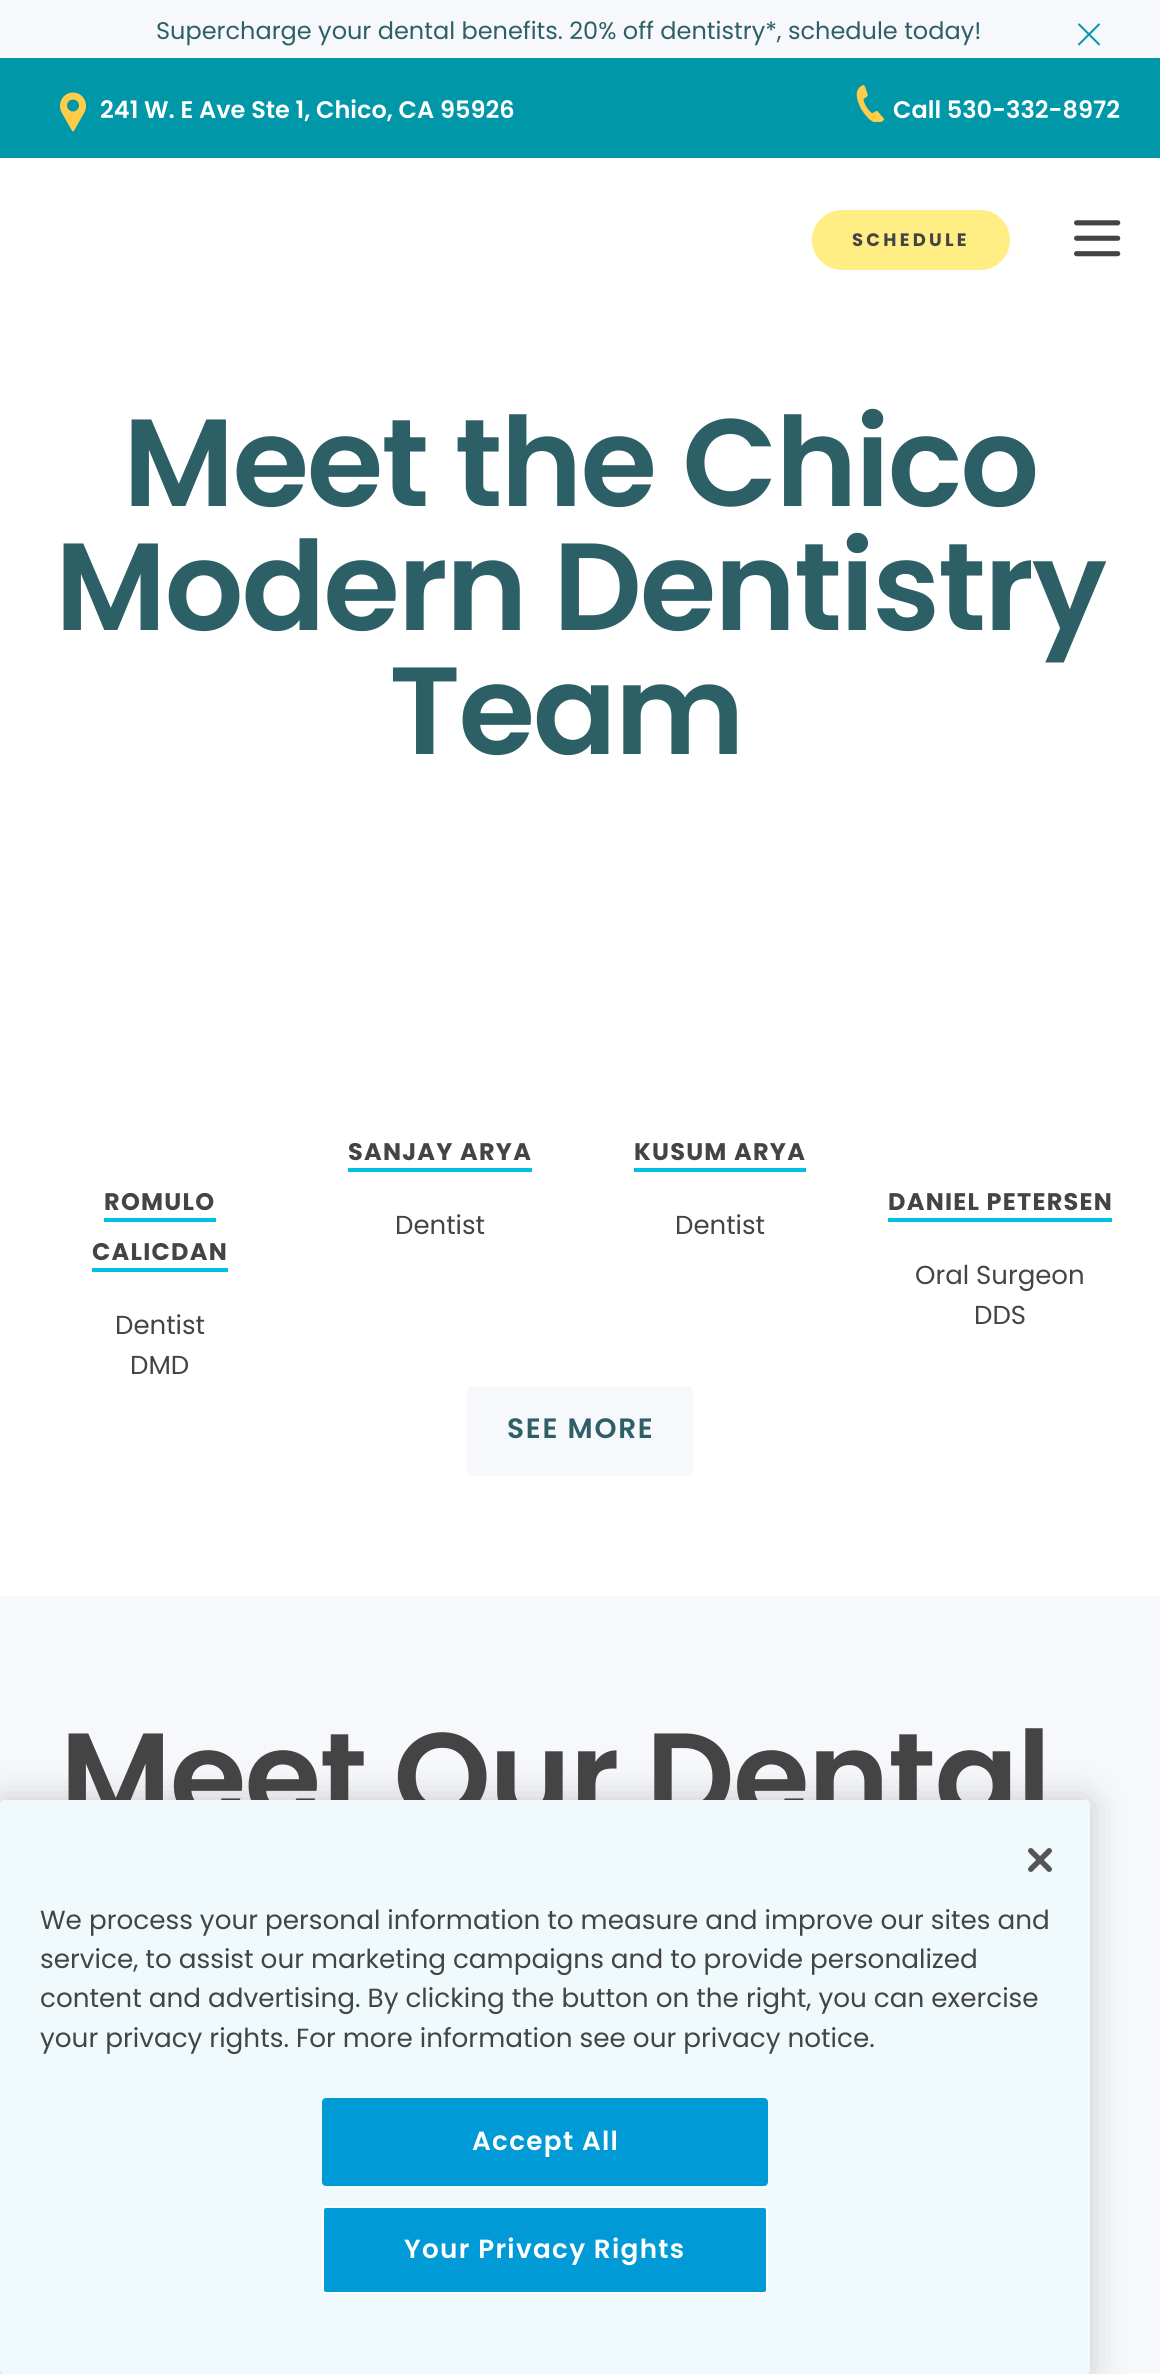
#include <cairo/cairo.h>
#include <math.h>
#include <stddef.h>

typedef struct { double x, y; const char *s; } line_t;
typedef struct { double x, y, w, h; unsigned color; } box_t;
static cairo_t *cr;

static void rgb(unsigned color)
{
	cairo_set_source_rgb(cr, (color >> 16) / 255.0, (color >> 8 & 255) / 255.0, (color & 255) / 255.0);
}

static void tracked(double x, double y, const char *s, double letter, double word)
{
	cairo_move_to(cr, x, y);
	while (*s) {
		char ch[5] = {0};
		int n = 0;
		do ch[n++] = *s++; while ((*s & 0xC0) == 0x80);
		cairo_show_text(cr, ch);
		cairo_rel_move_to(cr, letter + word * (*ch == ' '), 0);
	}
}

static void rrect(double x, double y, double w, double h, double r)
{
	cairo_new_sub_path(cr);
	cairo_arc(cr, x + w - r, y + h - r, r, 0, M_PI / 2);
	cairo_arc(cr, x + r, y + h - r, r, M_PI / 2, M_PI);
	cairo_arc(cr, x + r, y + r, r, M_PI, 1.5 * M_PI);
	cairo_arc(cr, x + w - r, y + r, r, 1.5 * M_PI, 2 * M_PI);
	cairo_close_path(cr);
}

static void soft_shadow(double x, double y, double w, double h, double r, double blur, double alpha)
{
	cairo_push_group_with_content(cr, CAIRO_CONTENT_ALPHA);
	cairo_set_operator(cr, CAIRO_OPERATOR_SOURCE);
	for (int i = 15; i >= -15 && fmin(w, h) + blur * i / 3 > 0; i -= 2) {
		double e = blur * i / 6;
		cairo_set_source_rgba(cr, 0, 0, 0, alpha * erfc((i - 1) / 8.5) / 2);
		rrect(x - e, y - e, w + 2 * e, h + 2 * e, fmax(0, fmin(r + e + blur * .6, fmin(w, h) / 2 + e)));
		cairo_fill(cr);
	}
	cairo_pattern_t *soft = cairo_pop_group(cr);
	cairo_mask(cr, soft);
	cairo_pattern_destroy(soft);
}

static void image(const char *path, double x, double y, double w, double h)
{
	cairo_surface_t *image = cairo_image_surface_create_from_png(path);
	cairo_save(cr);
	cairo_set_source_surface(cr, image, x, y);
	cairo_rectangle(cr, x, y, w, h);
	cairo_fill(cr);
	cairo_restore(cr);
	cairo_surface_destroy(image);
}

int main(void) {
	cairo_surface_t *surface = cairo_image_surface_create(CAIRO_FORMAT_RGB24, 1160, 2374);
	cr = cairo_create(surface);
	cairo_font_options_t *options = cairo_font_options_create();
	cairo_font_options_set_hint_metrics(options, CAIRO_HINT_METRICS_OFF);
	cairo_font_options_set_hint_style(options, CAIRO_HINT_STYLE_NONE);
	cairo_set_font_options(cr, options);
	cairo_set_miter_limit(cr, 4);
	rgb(0xffffff);
	cairo_paint(cr);
	rgb(0xf7f8fc);
	cairo_rectangle(cr, 0, 0, 1160, 58);
	cairo_fill(cr);
	image("img/1.png", 1078, 23, 22, 23);
	rgb(0x0097a8);
	cairo_rectangle(cr, 0, 58, 1160, 100);
	cairo_fill(cr);
	image("img/2.png", 60, 92, 26, 40);
	image("img/3.png", 856, 85, 29, 37);
	rgb(0xffee84);
	rrect(812, 210, 198, 60, 30);
	cairo_fill(cr);
	image("img/4.png", 1074, 220, 47, 37);
	{
		static const box_t items[] = {
			{104, 1218, 112, 4, 0x00bfe0},
			{92, 1268, 136, 4, 0x00bfe0},
			{348, 1168, 184, 4, 0x00bfe0},
			{634, 1168, 172, 4, 0x00bfe0},
			{888, 1218, 224, 4, 0x00bfe0},
		};
		for (size_t i = 0; i < sizeof items / sizeof *items; i++) {
			rgb(items[i].color);
			cairo_rectangle(cr, items[i].x, items[i].y, items[i].w, items[i].h);
			cairo_fill(cr);
		}
	}
	rgb(0xf7f8fc);
	rrect(466, 1386, 228, 90, 6);
	cairo_fill(cr);
	cairo_rectangle(cr, 0, 1596, 1160, 778);
	cairo_fill(cr);
	rgb(0x000000);
	soft_shadow(0, 1800, 1090, 574, 5, 18, 0.2);
	cairo_select_font_face(cr, "Poppins", CAIRO_FONT_SLANT_NORMAL, CAIRO_FONT_WEIGHT_NORMAL);
	cairo_set_font_size(cr, 24);
	rgb(0x2d5f66);
	cairo_move_to(cr, 156, 39);
	cairo_show_text(cr, "Supercharge your dental benefits. 20% off dentistry*, schedule today!");
	cairo_select_font_face(cr, "Poppins SemiBold", CAIRO_FONT_SLANT_NORMAL, CAIRO_FONT_WEIGHT_NORMAL);
	rgb(0xffffff);
	cairo_move_to(cr, 100, 118);
	cairo_show_text(cr, "241 W. E Ave Ste 1, Chico, CA 95926");
	cairo_move_to(cr, 893, 118);
	cairo_show_text(cr, "Call 530-332-8972");
	cairo_select_font_face(cr, "Poppins", CAIRO_FONT_SLANT_NORMAL, CAIRO_FONT_WEIGHT_BOLD);
	cairo_set_font_size(cr, 18);
	rgb(0x444444);
	tracked(852, 246, "SCHEDULE", 3.25, 0);
	cairo_select_font_face(cr, "Poppins SemiBold", CAIRO_FONT_SLANT_NORMAL, CAIRO_FONT_WEIGHT_NORMAL);
	cairo_set_font_size(cr, 124);
	rgb(0x2d5f66);
	{
		static const line_t items[] = {
			{123, 506, "Meet the Chico"},
			{55, 630, "Modern Dentistry"},
			{389, 754, "Team"},
		};
		for (size_t i = 0; i < sizeof items / sizeof *items; i++) {
			tracked(items[i].x, items[i].y, items[i].s, -2.1, 0);
		}
	}
	cairo_select_font_face(cr, "Poppins", CAIRO_FONT_SLANT_NORMAL, CAIRO_FONT_WEIGHT_BOLD);
	cairo_set_font_size(cr, 24);
	rgb(0x444444);
	tracked(104, 1210, "ROMULO", 1.25, 0);
	tracked(92, 1260, "CALICDAN", 1.25, 0);
	cairo_select_font_face(cr, "Poppins", CAIRO_FONT_SLANT_NORMAL, CAIRO_FONT_WEIGHT_NORMAL);
	cairo_set_font_size(cr, 26);
	cairo_move_to(cr, 115, 1334);
	cairo_show_text(cr, "Dentist");
	cairo_move_to(cr, 130, 1374);
	cairo_show_text(cr, "DMD");
	cairo_select_font_face(cr, "Poppins", CAIRO_FONT_SLANT_NORMAL, CAIRO_FONT_WEIGHT_BOLD);
	cairo_set_font_size(cr, 24);
	tracked(348, 1160, "SANJAY ARYA", 1.25, 0);
	cairo_select_font_face(cr, "Poppins", CAIRO_FONT_SLANT_NORMAL, CAIRO_FONT_WEIGHT_NORMAL);
	cairo_set_font_size(cr, 26);
	cairo_move_to(cr, 395, 1234);
	cairo_show_text(cr, "Dentist");
	cairo_select_font_face(cr, "Poppins", CAIRO_FONT_SLANT_NORMAL, CAIRO_FONT_WEIGHT_BOLD);
	cairo_set_font_size(cr, 24);
	tracked(634, 1160, "KUSUM ARYA", 1.25, 0);
	cairo_select_font_face(cr, "Poppins", CAIRO_FONT_SLANT_NORMAL, CAIRO_FONT_WEIGHT_NORMAL);
	cairo_set_font_size(cr, 26);
	cairo_move_to(cr, 675, 1234);
	cairo_show_text(cr, "Dentist");
	cairo_select_font_face(cr, "Poppins", CAIRO_FONT_SLANT_NORMAL, CAIRO_FONT_WEIGHT_BOLD);
	cairo_set_font_size(cr, 24);
	tracked(888, 1210, "DANIEL PETERSEN", 1.25, 0);
	cairo_select_font_face(cr, "Poppins", CAIRO_FONT_SLANT_NORMAL, CAIRO_FONT_WEIGHT_NORMAL);
	cairo_set_font_size(cr, 26);
	cairo_move_to(cr, 915, 1284);
	cairo_show_text(cr, "Oral Surgeon");
	cairo_move_to(cr, 974, 1324);
	cairo_show_text(cr, "DDS");
	cairo_select_font_face(cr, "Poppins SemiBold", CAIRO_FONT_SLANT_NORMAL, CAIRO_FONT_WEIGHT_NORMAL);
	cairo_set_font_size(cr, 28);
	rgb(0x2d5f66);
	tracked(507, 1438, "SEE MORE", 1.75, 0);
	cairo_set_font_size(cr, 124);
	rgb(0x444444);
	tracked(60, 1820, "Meet Our Dental", -1.7, 0);
	rgb(0xf0fafc);
	rrect(0, 1800, 1090, 574, 5);
	cairo_fill(cr);
	image("img/5.png", 1028, 1848, 24, 24);
	cairo_select_font_face(cr, "Poppins", CAIRO_FONT_SLANT_NORMAL, CAIRO_FONT_WEIGHT_NORMAL);
	cairo_set_font_size(cr, 26.25);
	rgb(0x444444);
	{
		static const line_t items[] = {
			{40, 1929, "We process your personal information to measure and improve our sites and"},
			{40, 1968, "service, to assist our marketing campaigns and to provide personalized"},
			{40, 2007, "content and advertising. By clicking the button on the right, you can exercise"},
			{40, 2047, "your privacy rights. For more information see our privacy notice."},
		};
		for (size_t i = 0; i < sizeof items / sizeof *items; i++) {
			cairo_move_to(cr, items[i].x, items[i].y);
			cairo_show_text(cr, items[i].s);
		}
	}
	rgb(0x009bd7);
	rrect(323, 2099, 444, 86, 3);
	cairo_fill_preserve(cr);
	cairo_stroke(cr);
	cairo_select_font_face(cr, "Poppins SemiBold", CAIRO_FONT_SLANT_NORMAL, CAIRO_FONT_WEIGHT_NORMAL);
	rgb(0xffffff);
	tracked(472, 2150, "Accept All", 1.3, 0);
	rgb(0x009bd7);
	rrect(323, 2207, 444, 86, 3);
	cairo_fill_preserve(cr);
	rgb(0xffffff);
	cairo_stroke(cr);
	tracked(404, 2258, "Your Privacy Rights", 1.3, 0);
	cairo_surface_write_to_png(surface, "page.png");
	cairo_font_options_destroy(options);
	cairo_destroy(cr);
	cairo_surface_destroy(surface);
	return 0;
}
